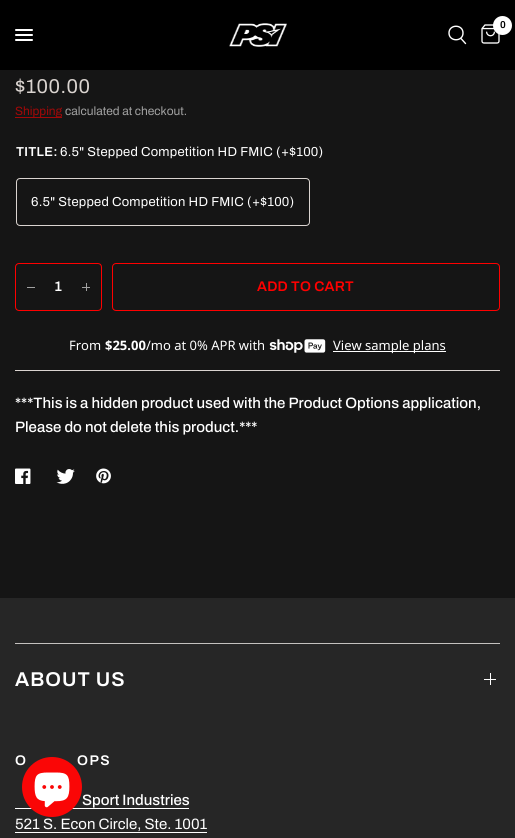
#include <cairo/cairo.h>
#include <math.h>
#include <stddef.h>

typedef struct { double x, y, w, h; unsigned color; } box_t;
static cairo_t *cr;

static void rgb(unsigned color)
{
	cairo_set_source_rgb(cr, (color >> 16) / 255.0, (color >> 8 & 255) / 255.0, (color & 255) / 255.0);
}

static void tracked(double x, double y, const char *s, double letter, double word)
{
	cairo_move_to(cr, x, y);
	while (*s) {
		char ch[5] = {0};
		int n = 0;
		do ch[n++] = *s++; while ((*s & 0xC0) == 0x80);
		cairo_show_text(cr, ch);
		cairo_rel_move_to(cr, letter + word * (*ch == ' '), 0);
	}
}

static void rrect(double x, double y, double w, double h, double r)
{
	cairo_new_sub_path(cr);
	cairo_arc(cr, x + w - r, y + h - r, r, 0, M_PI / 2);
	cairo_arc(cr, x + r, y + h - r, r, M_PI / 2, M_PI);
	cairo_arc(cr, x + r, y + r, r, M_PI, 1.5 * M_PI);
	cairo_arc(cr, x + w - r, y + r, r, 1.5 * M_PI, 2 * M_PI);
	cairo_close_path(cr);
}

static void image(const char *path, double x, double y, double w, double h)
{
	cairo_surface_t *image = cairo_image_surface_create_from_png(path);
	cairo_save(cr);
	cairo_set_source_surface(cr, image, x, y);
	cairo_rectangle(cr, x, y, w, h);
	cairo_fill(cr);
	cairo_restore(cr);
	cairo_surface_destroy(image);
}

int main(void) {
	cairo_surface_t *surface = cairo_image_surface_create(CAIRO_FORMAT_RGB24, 515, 838);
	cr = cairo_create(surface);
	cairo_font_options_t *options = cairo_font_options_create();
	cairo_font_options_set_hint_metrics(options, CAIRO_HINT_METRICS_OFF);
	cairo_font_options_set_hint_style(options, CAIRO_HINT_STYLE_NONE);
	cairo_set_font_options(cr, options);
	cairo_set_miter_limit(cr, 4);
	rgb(0x151515);
	cairo_paint(cr);
	rgb(0x000000);
	cairo_rectangle(cr, 0, 0, 515, 70);
	cairo_fill(cr);
	rgb(0xffffff);
	rrect(15, 29, 18, 2, 1);
	cairo_fill(cr);
	rrect(15, 34, 18, 2, 1);
	cairo_fill(cr);
	rrect(15, 39, 18, 2, 1);
	cairo_fill(cr);
	image("img/1.png", 229, 23, 58, 24);
	cairo_new_path(cr);
	cairo_move_to(cr, 461, 38.5);
	cairo_line_to(cr, 465.5, 43.5);
	cairo_move_to(cr, 463, 33);
	cairo_curve_to(cr, 463, 42, 449, 42, 449, 33);
	cairo_curve_to(cr, 449, 24, 463, 24, 463, 33);
	cairo_close_path(cr);
	cairo_set_line_width(cr, 1.4);
	cairo_set_line_cap(cr, CAIRO_LINE_CAP_ROUND);
	cairo_set_line_join(cr, CAIRO_LINE_JOIN_ROUND);
	cairo_stroke(cr);
	image("img/2.png", 481, 24, 19, 20);
	cairo_arc(cr, 502.5, 25.5, 9.5, 0, 2 * M_PI);
	cairo_fill(cr);
	rgb(0xa10808);
	cairo_rectangle(cr, 15, 117, 47, 1);
	cairo_fill(cr);
	rrect(16.5, 178.5, 293, 47, 3.5);
	rgb(0xdad4d0);
	cairo_set_line_width(cr, 1);
	cairo_set_line_cap(cr, CAIRO_LINE_CAP_BUTT);
	cairo_set_line_join(cr, CAIRO_LINE_JOIN_MITER);
	cairo_stroke(cr);
	rrect(15.5, 263.5, 86, 47, 3.5);
	rgb(0xff0000);
	cairo_stroke(cr);
	{
		static const box_t items[] = {
			{27, 287, 8, 1, 0xa1a1a1},
			{86, 283, 1, 8, 0xa1a1a1},
			{82, 287, 8, 1, 0xa1a1a1},
		};
		for (size_t i = 0; i < sizeof items / sizeof *items; i++) {
			rgb(items[i].color);
			cairo_rectangle(cr, items[i].x, items[i].y, items[i].w, items[i].h);
			cairo_fill(cr);
		}
	}
	rrect(112.5, 263.5, 387, 47, 3.5);
	rgb(0xff0000);
	cairo_stroke(cr);
	rgb(0xdad4d0);
	cairo_rectangle(cr, 15, 370, 485, 1);
	cairo_fill(cr);
	image("img/3.png", 269, 339, 57, 14);
	rgb(0xffffff);
	cairo_rectangle(cr, 333, 351, 113, 1);
	cairo_fill(cr);
	image("img/4.png", 15, 468, 16, 16);
	image("img/5.png", 56, 469, 19, 15);
	image("img/6.png", 96, 468, 15, 16);
	{
		static const box_t items[] = {
			{0, 598, 515, 240, 0x262626},
			{15, 643, 485, 1, 0xc4c1bf},
			{490, 673, 1, 12, 0xffffff},
			{484, 679, 12, 1, 0xffffff},
			{15, 808, 174, 1, 0xffffff},
			{15, 832, 192, 1, 0xffffff},
		};
		for (size_t i = 0; i < sizeof items / sizeof *items; i++) {
			rgb(items[i].color);
			cairo_rectangle(cr, items[i].x, items[i].y, items[i].w, items[i].h);
			cairo_fill(cr);
		}
	}
	cairo_select_font_face(cr, "Archivo SemiBold", CAIRO_FONT_SLANT_NORMAL, CAIRO_FONT_WEIGHT_NORMAL);
	cairo_set_font_size(cr, 10);
	rgb(0x000000);
	cairo_move_to(cr, 500, 28);
	cairo_show_text(cr, "0");
	cairo_select_font_face(cr, "Archivo", CAIRO_FONT_SLANT_NORMAL, CAIRO_FONT_WEIGHT_NORMAL);
	cairo_set_font_size(cr, 20);
	rgb(0xdad4d0);
	tracked(15, 93, "$100.00", 0.5, 0);
	cairo_set_font_size(cr, 12);
	rgb(0xa10808);
	cairo_move_to(cr, 15, 115);
	cairo_show_text(cr, "Shipping");
	rgb(0xa1a1a1);
	cairo_move_to(cr, 65, 115);
	cairo_show_text(cr, "calculated at checkout.");
	cairo_select_font_face(cr, "Archivo SemiBold", CAIRO_FONT_SLANT_NORMAL, CAIRO_FONT_WEIGHT_NORMAL);
	cairo_set_font_size(cr, 13);
	rgb(0xffffff);
	tracked(16, 156, "TITLE:", 0.25, 0);
	cairo_select_font_face(cr, "Archivo", CAIRO_FONT_SLANT_NORMAL, CAIRO_FONT_WEIGHT_NORMAL);
	tracked(60, 156, "6.5\" Stepped Competition HD FMIC (+$100)", 0.25, 0);
	tracked(31, 206, "6.5\" Stepped Competition HD FMIC (+$100)", 0.25, 0);
	cairo_select_font_face(cr, "Archivo SemiBold", CAIRO_FONT_SLANT_NORMAL, CAIRO_FONT_WEIGHT_NORMAL);
	cairo_set_font_size(cr, 14);
	cairo_move_to(cr, 54, 291);
	cairo_show_text(cr, "1");
	rgb(0xff0000);
	tracked(257, 291, "ADD TO CART", 0.25, 0);
	cairo_select_font_face(cr, "Noto Sans", CAIRO_FONT_SLANT_NORMAL, CAIRO_FONT_WEIGHT_NORMAL);
	cairo_set_font_size(cr, 13);
	rgb(0xffffff);
	cairo_move_to(cr, 69, 350);
	cairo_show_text(cr, "From");
	cairo_select_font_face(cr, "Noto Sans", CAIRO_FONT_SLANT_NORMAL, CAIRO_FONT_WEIGHT_BOLD);
	cairo_move_to(cr, 105, 350);
	cairo_show_text(cr, "$25.00");
	cairo_select_font_face(cr, "Noto Sans", CAIRO_FONT_SLANT_NORMAL, CAIRO_FONT_WEIGHT_NORMAL);
	cairo_move_to(cr, 146, 350);
	cairo_show_text(cr, "/mo at 0% APR with");
	cairo_move_to(cr, 333, 350);
	cairo_show_text(cr, "View sample plans");
	cairo_select_font_face(cr, "Archivo Medium", CAIRO_FONT_SLANT_NORMAL, CAIRO_FONT_WEIGHT_NORMAL);
	cairo_set_font_size(cr, 15);
	cairo_move_to(cr, 15, 408);
	cairo_show_text(cr, "***This is a hidden product used with the Product Options application,");
	cairo_move_to(cr, 15, 432);
	cairo_show_text(cr, "Please do not delete this product.***");
	cairo_select_font_face(cr, "Archivo SemiBold", CAIRO_FONT_SLANT_NORMAL, CAIRO_FONT_WEIGHT_NORMAL);
	cairo_set_font_size(cr, 20);
	tracked(15, 686, "ABOUT US", 1, 0);
	cairo_set_font_size(cr, 14);
	tracked(15, 765, "O", 1.5, 0);
	tracked(77, 765, "OPS", 1.5, 0);
	cairo_select_font_face(cr, "Archivo Medium", CAIRO_FONT_SLANT_NORMAL, CAIRO_FONT_WEIGHT_NORMAL);
	cairo_set_font_size(cr, 15);
	cairo_move_to(cr, 82, 805);
	cairo_show_text(cr, "Sport Industries");
	cairo_select_font_face(cr, "Archivo", CAIRO_FONT_SLANT_NORMAL, CAIRO_FONT_WEIGHT_NORMAL);
	cairo_move_to(cr, 15, 829);
	cairo_show_text(cr, "521 S. Econ Circle, Ste. 1001");
	rgb(0xfa0606);
	cairo_new_path(cr);
	cairo_arc(cr, 52, 787, 30, 0, 2 * M_PI);
	cairo_fill(cr);
	image("img/7.png", 34, 772, 36, 36);
	cairo_surface_write_to_png(surface, "page.png");
	cairo_font_options_destroy(options);
	cairo_destroy(cr);
	cairo_surface_destroy(surface);
	return 0;
}
